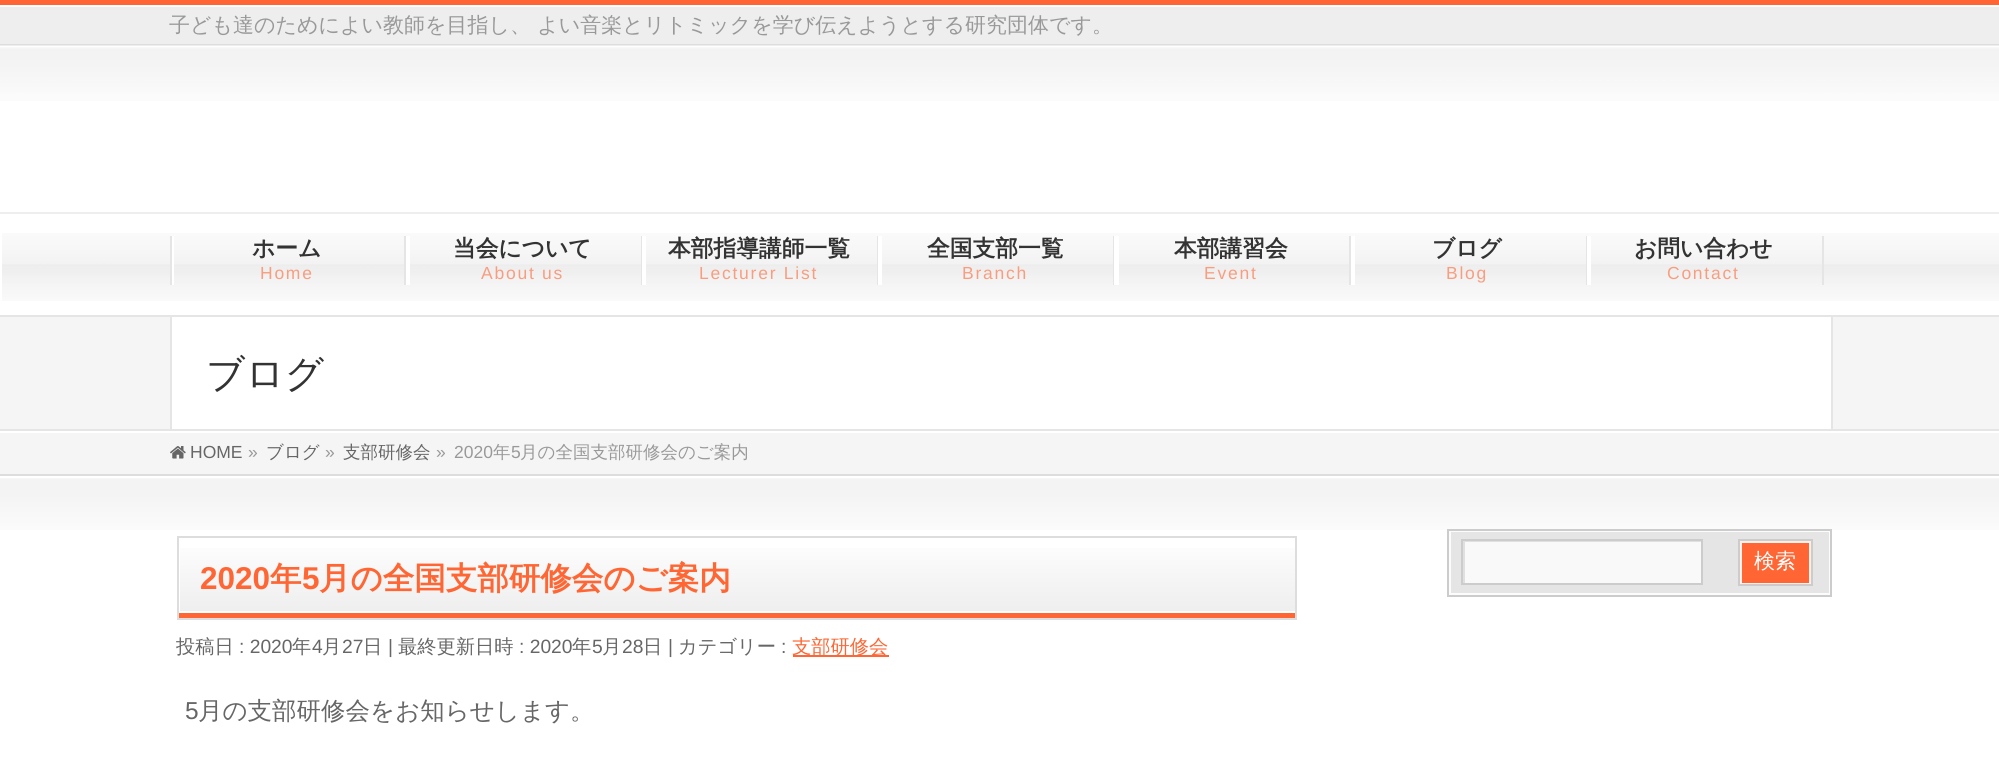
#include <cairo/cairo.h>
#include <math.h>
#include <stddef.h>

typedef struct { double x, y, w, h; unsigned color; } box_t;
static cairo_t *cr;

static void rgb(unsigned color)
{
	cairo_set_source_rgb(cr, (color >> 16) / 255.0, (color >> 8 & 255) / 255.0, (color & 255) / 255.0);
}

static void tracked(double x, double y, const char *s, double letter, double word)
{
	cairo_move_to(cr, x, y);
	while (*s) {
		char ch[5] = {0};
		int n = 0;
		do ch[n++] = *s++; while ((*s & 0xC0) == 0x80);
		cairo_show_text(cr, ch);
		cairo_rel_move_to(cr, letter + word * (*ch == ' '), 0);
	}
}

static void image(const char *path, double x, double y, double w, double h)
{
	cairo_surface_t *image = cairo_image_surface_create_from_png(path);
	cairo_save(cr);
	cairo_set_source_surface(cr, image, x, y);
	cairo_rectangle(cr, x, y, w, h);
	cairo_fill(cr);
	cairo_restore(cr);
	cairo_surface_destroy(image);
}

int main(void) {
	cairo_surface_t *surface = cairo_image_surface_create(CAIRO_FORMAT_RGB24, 1999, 775);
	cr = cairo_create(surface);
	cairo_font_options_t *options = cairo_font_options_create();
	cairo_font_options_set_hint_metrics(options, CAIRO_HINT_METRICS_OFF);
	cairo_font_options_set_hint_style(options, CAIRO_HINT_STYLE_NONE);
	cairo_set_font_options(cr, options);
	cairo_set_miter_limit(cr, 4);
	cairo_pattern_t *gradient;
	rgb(0xffffff);
	cairo_paint(cr);
	{
		static const box_t items[] = {
			{0, 7, 1999, 37, 0xeeeeee},
			{0, 0, 1999, 5, 0xff6633},
			{0, 44, 1999, 2, 0xdddddd},
		};
		for (size_t i = 0; i < sizeof items / sizeof *items; i++) {
			rgb(items[i].color);
			cairo_rectangle(cr, items[i].x, items[i].y, items[i].w, items[i].h);
			cairo_fill(cr);
		}
	}
	image("img/1.png", 0, 45, 1999, 56);
	image("img/2.png", 2, 233, 1997, 68);
	{
		static const box_t items[] = {
			{0, 212, 1999, 2, 0xeeeeee},
			{172, 236, 2, 49, 0xffffff},
			{404, 236, 2, 49, 0xe5e5e5},
			{170, 236, 2, 49, 0xe5e5e5},
			{406, 236, 4, 49, 0xffffff},
			{641, 236, 1, 49, 0xe5e5e5},
			{642, 236, 4, 49, 0xffffff},
			{877, 236, 1, 49, 0xe5e5e5},
			{878, 236, 4, 49, 0xffffff},
			{1113, 236, 1, 49, 0xe5e5e5},
			{1114, 236, 5, 49, 0xffffff},
			{1349, 236, 2, 49, 0xe5e5e5},
			{1351, 236, 4, 49, 0xffffff},
			{1586, 236, 1, 49, 0xe5e5e5},
			{1587, 236, 4, 49, 0xffffff},
			{1822, 236, 2, 49, 0xe5e5e5},
			{0, 317, 1999, 112, 0xf5f5f5},
			{0, 315, 1999, 2, 0xe5e5e5},
			{0, 429, 1999, 2, 0xe5e5e5},
			{172, 317, 1659, 112, 0xffffff},
			{1831, 317, 2, 112, 0xe5e5e5},
			{170, 317, 2, 112, 0xe5e5e5},
			{0, 433, 1999, 41, 0xf5f5f5},
			{0, 474, 1999, 2, 0xdddddd},
		};
		for (size_t i = 0; i < sizeof items / sizeof *items; i++) {
			rgb(items[i].color);
			cairo_rectangle(cr, items[i].x, items[i].y, items[i].w, items[i].h);
			cairo_fill(cr);
		}
	}
	image("img/3.png", 170, 446, 16, 13);
	image("img/4.png", 0, 478, 1999, 52);
	gradient = cairo_pattern_create_linear(737, 537, 737, 618);
	cairo_pattern_add_color_stop_rgba(gradient, 0, 1, 1, 1, 1);
	cairo_pattern_add_color_stop_rgba(gradient, 0.47, 0.965, 0.965, 0.965, 1);
	cairo_pattern_add_color_stop_rgba(gradient, 1, 0.929, 0.929, 0.929, 1);
	cairo_set_source(cr, gradient);
	cairo_pattern_destroy(gradient);
	cairo_rectangle(cr, 180, 548, 1115, 63);
	cairo_fill(cr);
	cairo_rectangle(cr, 178, 537, 1118, 82);
	rgb(0xdddddd);
	cairo_stroke(cr);
	rgb(0xff6633);
	cairo_rectangle(cr, 179, 613, 1116, 5);
	cairo_fill(cr);
	cairo_rectangle(cr, 793, 655, 96, 2);
	cairo_fill(cr);
	rgb(0xe5e5e5);
	cairo_rectangle(cr, 1450, 531, 380, 63);
	cairo_fill_preserve(cr);
	rgb(0xfcfcfc);
	cairo_stroke(cr);
	cairo_rectangle(cr, 1448, 530, 383, 66);
	rgb(0xcccccc);
	cairo_stroke(cr);
	rgb(0xf9f9f9);
	cairo_rectangle(cr, 1465, 542, 236, 41);
	cairo_fill(cr);
	cairo_save(cr);
	cairo_rectangle(cr, 1463, 541, 238, 42);
	cairo_clip(cr);
	rgb(0xe0e0e0);
	cairo_set_fill_rule(cr, CAIRO_FILL_RULE_EVEN_ODD);
	cairo_new_path(cr);
	cairo_move_to(cr, 1290, 368);
	cairo_line_to(cr, 1874, 368);
	cairo_line_to(cr, 1874, 756);
	cairo_line_to(cr, 1290, 756);
	cairo_close_path(cr);
	cairo_move_to(cr, 1465, 542);
	cairo_line_to(cr, 1703, 542);
	cairo_line_to(cr, 1703, 584);
	cairo_line_to(cr, 1465, 584);
	cairo_close_path(cr);
	cairo_fill(cr);
	cairo_restore(cr);
	cairo_rectangle(cr, 1462, 540, 240, 44);
	rgb(0xcccccc);
	cairo_stroke(cr);
	rgb(0xff6633);
	cairo_rectangle(cr, 1741, 542, 69, 42);
	cairo_fill_preserve(cr);
	rgb(0xfff0eb);
	cairo_stroke(cr);
	cairo_rectangle(cr, 1739, 540, 73, 45);
	rgb(0xcccccc);
	cairo_stroke(cr);
	cairo_select_font_face(cr, "WenQuanYi Zen Hei Medium", CAIRO_FONT_SLANT_NORMAL, CAIRO_FONT_WEIGHT_NORMAL);
	cairo_set_font_size(cr, 21);
	rgb(0x999999);
	cairo_move_to(cr, 169, 32);
	cairo_show_text(cr, "子ども達のためによい教師を目指し、 よい音楽とリトミックを学び伝えようとする研究団体です。");
	cairo_select_font_face(cr, "WenQuanYi Zen Hei", CAIRO_FONT_SLANT_NORMAL, CAIRO_FONT_WEIGHT_BOLD);
	cairo_set_font_size(cr, 22.75);
	rgb(0x333333);
	cairo_move_to(cr, 252, 256);
	cairo_show_text(cr, "ホーム");
	cairo_select_font_face(cr, "Liberation Sans", CAIRO_FONT_SLANT_NORMAL, CAIRO_FONT_WEIGHT_NORMAL);
	cairo_set_font_size(cr, 17.5);
	rgb(0xf99d7f);
	tracked(260, 279, "Home", 1.75, 0);
	cairo_select_font_face(cr, "WenQuanYi Zen Hei", CAIRO_FONT_SLANT_NORMAL, CAIRO_FONT_WEIGHT_BOLD);
	cairo_set_font_size(cr, 22.75);
	rgb(0x333333);
	cairo_move_to(cr, 453, 256);
	cairo_show_text(cr, "当会について");
	cairo_select_font_face(cr, "Liberation Sans", CAIRO_FONT_SLANT_NORMAL, CAIRO_FONT_WEIGHT_NORMAL);
	cairo_set_font_size(cr, 17.5);
	rgb(0xf99d7f);
	tracked(481, 279, "About us", 1.75, 0);
	cairo_select_font_face(cr, "WenQuanYi Zen Hei", CAIRO_FONT_SLANT_NORMAL, CAIRO_FONT_WEIGHT_BOLD);
	cairo_set_font_size(cr, 22.75);
	rgb(0x333333);
	cairo_move_to(cr, 668, 256);
	cairo_show_text(cr, "本部指導講師一覧");
	cairo_select_font_face(cr, "Liberation Sans", CAIRO_FONT_SLANT_NORMAL, CAIRO_FONT_WEIGHT_NORMAL);
	cairo_set_font_size(cr, 17.5);
	rgb(0xf99d7f);
	tracked(699, 279, "Lecturer List", 1.75, 0);
	cairo_select_font_face(cr, "WenQuanYi Zen Hei", CAIRO_FONT_SLANT_NORMAL, CAIRO_FONT_WEIGHT_BOLD);
	cairo_set_font_size(cr, 22.75);
	rgb(0x333333);
	cairo_move_to(cr, 927, 256);
	cairo_show_text(cr, "全国支部一覧");
	cairo_select_font_face(cr, "Liberation Sans", CAIRO_FONT_SLANT_NORMAL, CAIRO_FONT_WEIGHT_NORMAL);
	cairo_set_font_size(cr, 17.5);
	rgb(0xf99d7f);
	tracked(962, 279, "Branch", 1.75, 0);
	cairo_select_font_face(cr, "WenQuanYi Zen Hei", CAIRO_FONT_SLANT_NORMAL, CAIRO_FONT_WEIGHT_BOLD);
	cairo_set_font_size(cr, 22.75);
	rgb(0x333333);
	cairo_move_to(cr, 1174, 256);
	cairo_show_text(cr, "本部講習会");
	cairo_select_font_face(cr, "Liberation Sans", CAIRO_FONT_SLANT_NORMAL, CAIRO_FONT_WEIGHT_NORMAL);
	cairo_set_font_size(cr, 17.5);
	rgb(0xf99d7f);
	tracked(1204, 279, "Event", 1.75, 0);
	cairo_select_font_face(cr, "WenQuanYi Zen Hei", CAIRO_FONT_SLANT_NORMAL, CAIRO_FONT_WEIGHT_BOLD);
	cairo_set_font_size(cr, 22.75);
	rgb(0x333333);
	cairo_move_to(cr, 1432, 256);
	cairo_show_text(cr, "ブログ");
	cairo_select_font_face(cr, "Liberation Sans", CAIRO_FONT_SLANT_NORMAL, CAIRO_FONT_WEIGHT_NORMAL);
	cairo_set_font_size(cr, 17.5);
	rgb(0xf99d7f);
	tracked(1446, 279, "Blog", 1.75, 0);
	cairo_select_font_face(cr, "WenQuanYi Zen Hei", CAIRO_FONT_SLANT_NORMAL, CAIRO_FONT_WEIGHT_BOLD);
	cairo_set_font_size(cr, 22.75);
	rgb(0x333333);
	cairo_move_to(cr, 1634, 256);
	cairo_show_text(cr, "お問い合わせ");
	cairo_select_font_face(cr, "Liberation Sans", CAIRO_FONT_SLANT_NORMAL, CAIRO_FONT_WEIGHT_NORMAL);
	cairo_set_font_size(cr, 17.5);
	rgb(0xf99d7f);
	tracked(1667, 279, "Contact", 1.75, 0);
	cairo_select_font_face(cr, "WenQuanYi Zen Hei Medium", CAIRO_FONT_SLANT_NORMAL, CAIRO_FONT_WEIGHT_NORMAL);
	cairo_set_font_size(cr, 38.5);
	rgb(0x333333);
	cairo_move_to(cr, 206, 387);
	cairo_show_text(cr, "ブログ");
	cairo_select_font_face(cr, "Liberation Sans", CAIRO_FONT_SLANT_NORMAL, CAIRO_FONT_WEIGHT_NORMAL);
	cairo_set_font_size(cr, 17.5);
	rgb(0x666666);
	cairo_move_to(cr, 190, 458);
	cairo_show_text(cr, "HOME");
	rgb(0x999999);
	cairo_move_to(cr, 248, 458);
	cairo_show_text(cr, "»");
	cairo_select_font_face(cr, "WenQuanYi Zen Hei Medium", CAIRO_FONT_SLANT_NORMAL, CAIRO_FONT_WEIGHT_NORMAL);
	rgb(0x666666);
	cairo_move_to(cr, 266, 458);
	cairo_show_text(cr, "ブログ");
	cairo_select_font_face(cr, "Liberation Sans", CAIRO_FONT_SLANT_NORMAL, CAIRO_FONT_WEIGHT_NORMAL);
	rgb(0x999999);
	cairo_move_to(cr, 325, 458);
	cairo_show_text(cr, "»");
	cairo_select_font_face(cr, "WenQuanYi Zen Hei Medium", CAIRO_FONT_SLANT_NORMAL, CAIRO_FONT_WEIGHT_NORMAL);
	rgb(0x666666);
	cairo_move_to(cr, 343, 458);
	cairo_show_text(cr, "支部研修会");
	cairo_select_font_face(cr, "Liberation Sans", CAIRO_FONT_SLANT_NORMAL, CAIRO_FONT_WEIGHT_NORMAL);
	rgb(0x999999);
	cairo_move_to(cr, 436, 458);
	cairo_show_text(cr, "»");
	cairo_move_to(cr, 454, 458);
	cairo_show_text(cr, "2020");
	cairo_select_font_face(cr, "WenQuanYi Zen Hei Medium", CAIRO_FONT_SLANT_NORMAL, CAIRO_FONT_WEIGHT_NORMAL);
	cairo_move_to(cr, 493, 458);
	cairo_show_text(cr, "年");
	cairo_select_font_face(cr, "Liberation Sans", CAIRO_FONT_SLANT_NORMAL, CAIRO_FONT_WEIGHT_NORMAL);
	cairo_move_to(cr, 511, 458);
	cairo_show_text(cr, "5");
	cairo_select_font_face(cr, "WenQuanYi Zen Hei Medium", CAIRO_FONT_SLANT_NORMAL, CAIRO_FONT_WEIGHT_NORMAL);
	cairo_move_to(cr, 520, 458);
	cairo_show_text(cr, "月の全国支部研修会のご案内");
	cairo_select_font_face(cr, "Liberation Sans", CAIRO_FONT_SLANT_NORMAL, CAIRO_FONT_WEIGHT_BOLD);
	cairo_set_font_size(cr, 31.5);
	rgb(0xff6633);
	cairo_move_to(cr, 200, 589);
	cairo_show_text(cr, "2020");
	cairo_select_font_face(cr, "WenQuanYi Zen Hei", CAIRO_FONT_SLANT_NORMAL, CAIRO_FONT_WEIGHT_BOLD);
	cairo_move_to(cr, 270, 589);
	cairo_show_text(cr, "年");
	cairo_select_font_face(cr, "Liberation Sans", CAIRO_FONT_SLANT_NORMAL, CAIRO_FONT_WEIGHT_BOLD);
	cairo_move_to(cr, 302, 589);
	cairo_show_text(cr, "5");
	cairo_select_font_face(cr, "WenQuanYi Zen Hei", CAIRO_FONT_SLANT_NORMAL, CAIRO_FONT_WEIGHT_BOLD);
	cairo_move_to(cr, 319, 589);
	cairo_show_text(cr, "月の全国支部研修会のご案内");
	cairo_select_font_face(cr, "WenQuanYi Zen Hei Medium", CAIRO_FONT_SLANT_NORMAL, CAIRO_FONT_WEIGHT_NORMAL);
	cairo_set_font_size(cr, 19.25);
	rgb(0x666666);
	cairo_move_to(cr, 176, 653);
	cairo_show_text(cr, "投稿日");
	cairo_select_font_face(cr, "Liberation Sans", CAIRO_FONT_SLANT_NORMAL, CAIRO_FONT_WEIGHT_NORMAL);
	cairo_move_to(cr, 239, 653);
	cairo_show_text(cr, ": 2020");
	cairo_select_font_face(cr, "WenQuanYi Zen Hei Medium", CAIRO_FONT_SLANT_NORMAL, CAIRO_FONT_WEIGHT_NORMAL);
	cairo_move_to(cr, 292, 653);
	cairo_show_text(cr, "年");
	cairo_select_font_face(cr, "Liberation Sans", CAIRO_FONT_SLANT_NORMAL, CAIRO_FONT_WEIGHT_NORMAL);
	cairo_move_to(cr, 312, 653);
	cairo_show_text(cr, "4");
	cairo_select_font_face(cr, "WenQuanYi Zen Hei Medium", CAIRO_FONT_SLANT_NORMAL, CAIRO_FONT_WEIGHT_NORMAL);
	cairo_move_to(cr, 322, 653);
	cairo_show_text(cr, "月");
	cairo_select_font_face(cr, "Liberation Sans", CAIRO_FONT_SLANT_NORMAL, CAIRO_FONT_WEIGHT_NORMAL);
	cairo_move_to(cr, 342, 653);
	cairo_show_text(cr, "27");
	cairo_select_font_face(cr, "WenQuanYi Zen Hei Medium", CAIRO_FONT_SLANT_NORMAL, CAIRO_FONT_WEIGHT_NORMAL);
	cairo_move_to(cr, 363, 653);
	cairo_show_text(cr, "日");
	cairo_select_font_face(cr, "Liberation Sans", CAIRO_FONT_SLANT_NORMAL, CAIRO_FONT_WEIGHT_NORMAL);
	cairo_move_to(cr, 388, 653);
	cairo_show_text(cr, "|");
	cairo_select_font_face(cr, "WenQuanYi Zen Hei Medium", CAIRO_FONT_SLANT_NORMAL, CAIRO_FONT_WEIGHT_NORMAL);
	cairo_move_to(cr, 398, 653);
	cairo_show_text(cr, "最終更新日時");
	cairo_select_font_face(cr, "Liberation Sans", CAIRO_FONT_SLANT_NORMAL, CAIRO_FONT_WEIGHT_NORMAL);
	cairo_move_to(cr, 519, 653);
	cairo_show_text(cr, ": 2020");
	cairo_select_font_face(cr, "WenQuanYi Zen Hei Medium", CAIRO_FONT_SLANT_NORMAL, CAIRO_FONT_WEIGHT_NORMAL);
	cairo_move_to(cr, 572, 653);
	cairo_show_text(cr, "年");
	cairo_select_font_face(cr, "Liberation Sans", CAIRO_FONT_SLANT_NORMAL, CAIRO_FONT_WEIGHT_NORMAL);
	cairo_move_to(cr, 592, 653);
	cairo_show_text(cr, "5");
	cairo_select_font_face(cr, "WenQuanYi Zen Hei Medium", CAIRO_FONT_SLANT_NORMAL, CAIRO_FONT_WEIGHT_NORMAL);
	cairo_move_to(cr, 602, 653);
	cairo_show_text(cr, "月");
	cairo_select_font_face(cr, "Liberation Sans", CAIRO_FONT_SLANT_NORMAL, CAIRO_FONT_WEIGHT_NORMAL);
	cairo_move_to(cr, 622, 653);
	cairo_show_text(cr, "28");
	cairo_select_font_face(cr, "WenQuanYi Zen Hei Medium", CAIRO_FONT_SLANT_NORMAL, CAIRO_FONT_WEIGHT_NORMAL);
	cairo_move_to(cr, 643, 653);
	cairo_show_text(cr, "日");
	cairo_select_font_face(cr, "Liberation Sans", CAIRO_FONT_SLANT_NORMAL, CAIRO_FONT_WEIGHT_NORMAL);
	cairo_move_to(cr, 668, 653);
	cairo_show_text(cr, "|");
	cairo_select_font_face(cr, "WenQuanYi Zen Hei Medium", CAIRO_FONT_SLANT_NORMAL, CAIRO_FONT_WEIGHT_NORMAL);
	cairo_move_to(cr, 678, 653);
	cairo_show_text(cr, "カテゴリー");
	cairo_select_font_face(cr, "Liberation Sans", CAIRO_FONT_SLANT_NORMAL, CAIRO_FONT_WEIGHT_NORMAL);
	cairo_move_to(cr, 781, 653);
	cairo_show_text(cr, ":");
	cairo_select_font_face(cr, "WenQuanYi Zen Hei Medium", CAIRO_FONT_SLANT_NORMAL, CAIRO_FONT_WEIGHT_NORMAL);
	rgb(0xff6633);
	cairo_move_to(cr, 792, 653);
	cairo_show_text(cr, "支部研修会");
	cairo_select_font_face(cr, "Liberation Sans", CAIRO_FONT_SLANT_NORMAL, CAIRO_FONT_WEIGHT_NORMAL);
	cairo_set_font_size(cr, 24.5);
	rgb(0x666666);
	cairo_move_to(cr, 185, 719);
	cairo_show_text(cr, "5");
	cairo_select_font_face(cr, "WenQuanYi Zen Hei Medium", CAIRO_FONT_SLANT_NORMAL, CAIRO_FONT_WEIGHT_NORMAL);
	cairo_move_to(cr, 198, 719);
	cairo_show_text(cr, "月の支部研修会をお知らせします。");
	cairo_set_font_size(cr, 21);
	rgb(0xffffff);
	cairo_move_to(cr, 1754, 568);
	cairo_show_text(cr, "検索");
	cairo_surface_write_to_png(surface, "page.png");
	cairo_font_options_destroy(options);
	cairo_destroy(cr);
	cairo_surface_destroy(surface);
	return 0;
}
